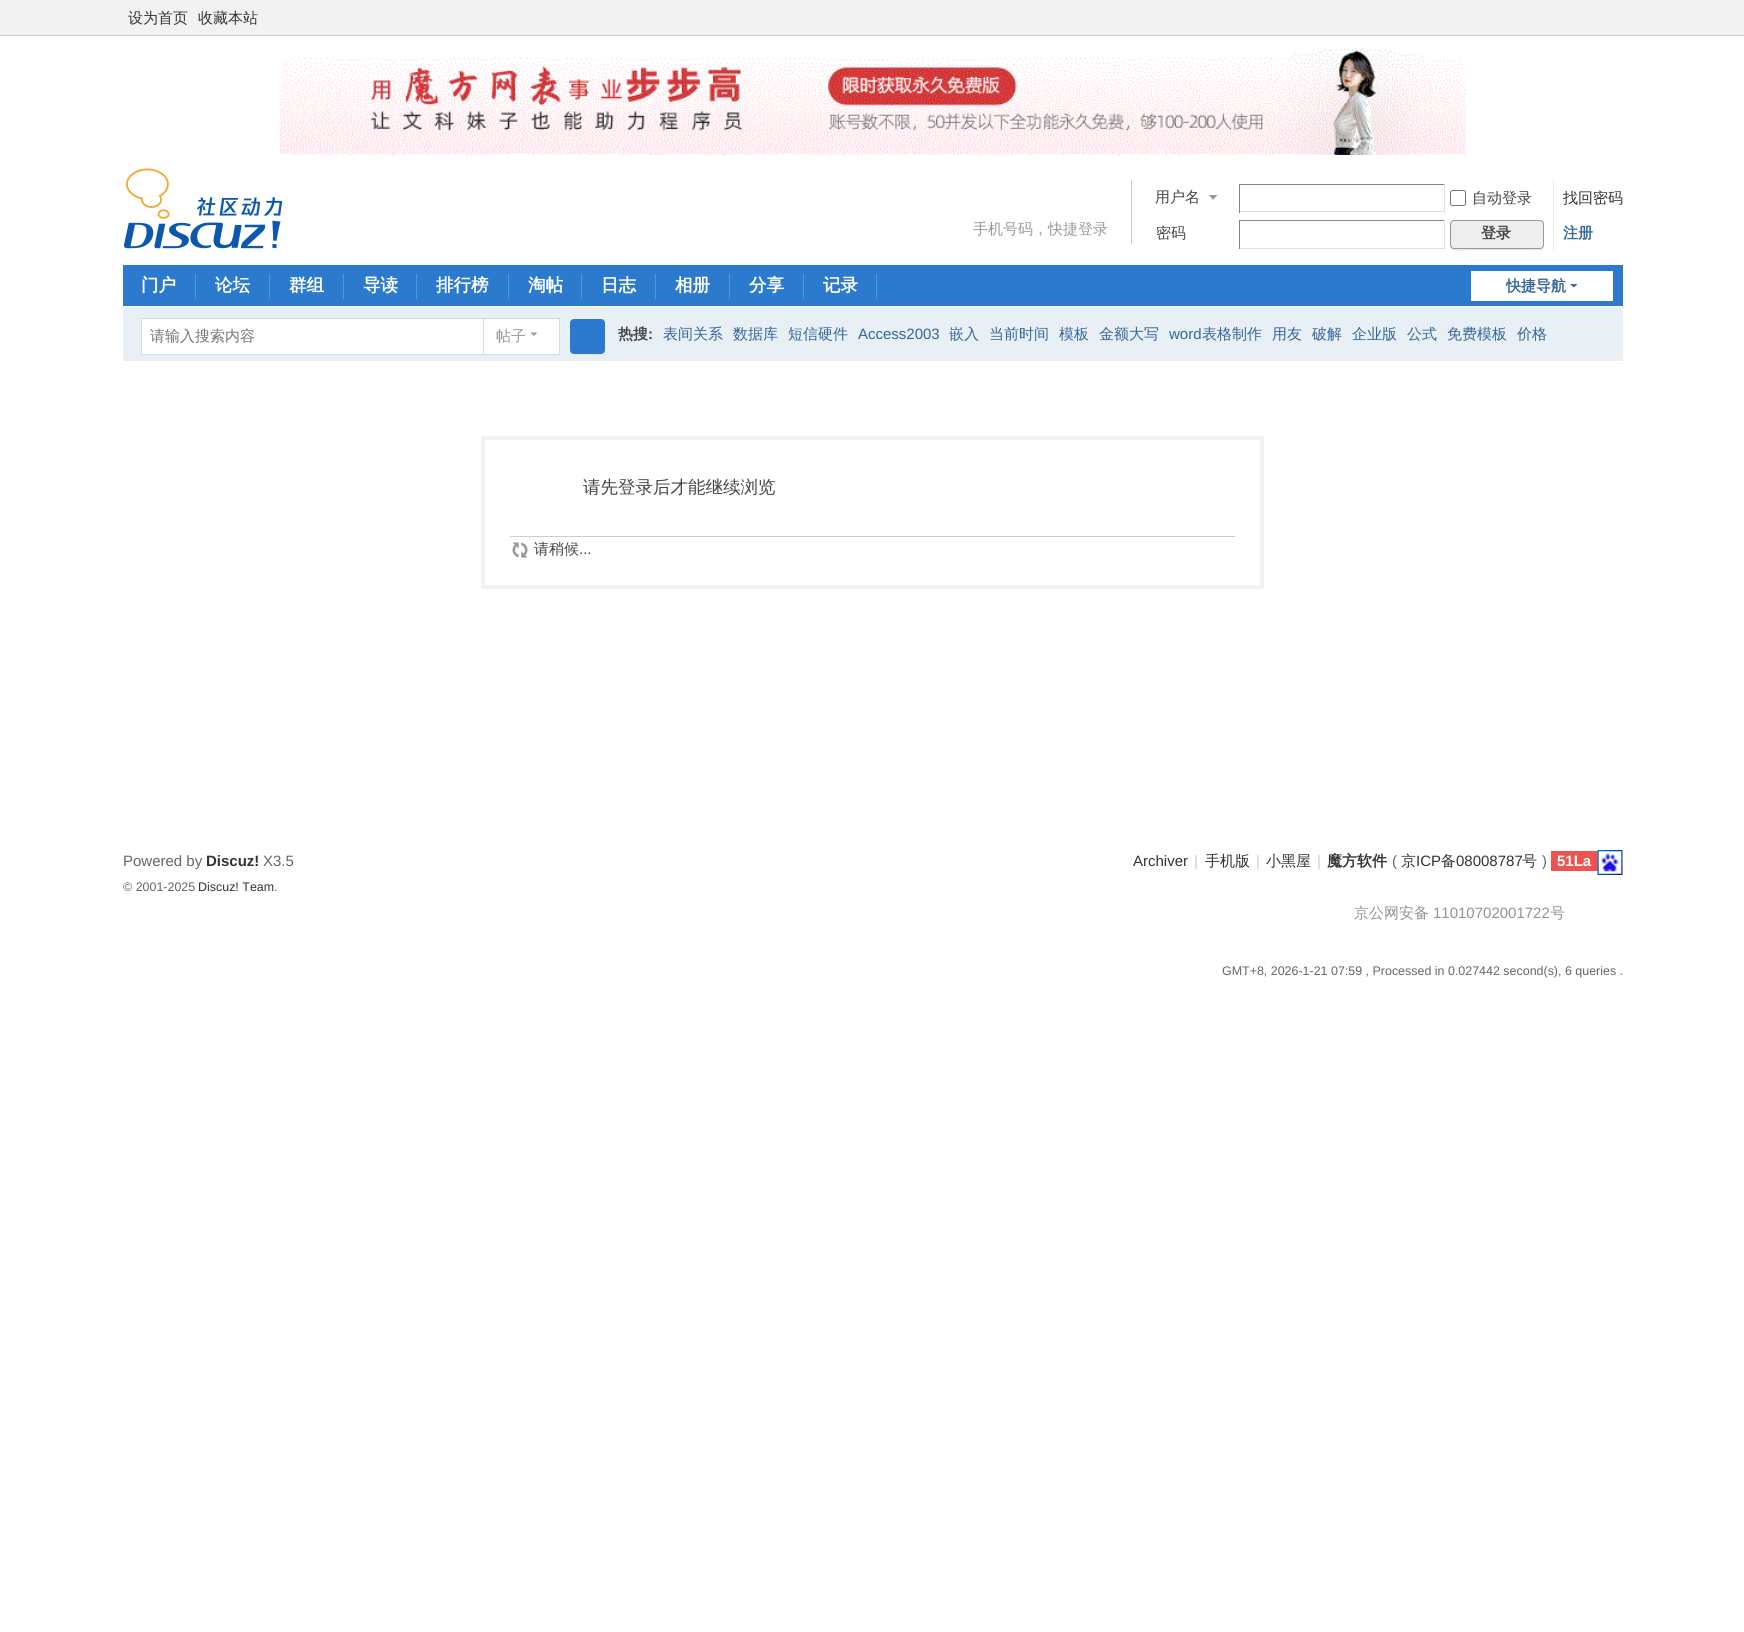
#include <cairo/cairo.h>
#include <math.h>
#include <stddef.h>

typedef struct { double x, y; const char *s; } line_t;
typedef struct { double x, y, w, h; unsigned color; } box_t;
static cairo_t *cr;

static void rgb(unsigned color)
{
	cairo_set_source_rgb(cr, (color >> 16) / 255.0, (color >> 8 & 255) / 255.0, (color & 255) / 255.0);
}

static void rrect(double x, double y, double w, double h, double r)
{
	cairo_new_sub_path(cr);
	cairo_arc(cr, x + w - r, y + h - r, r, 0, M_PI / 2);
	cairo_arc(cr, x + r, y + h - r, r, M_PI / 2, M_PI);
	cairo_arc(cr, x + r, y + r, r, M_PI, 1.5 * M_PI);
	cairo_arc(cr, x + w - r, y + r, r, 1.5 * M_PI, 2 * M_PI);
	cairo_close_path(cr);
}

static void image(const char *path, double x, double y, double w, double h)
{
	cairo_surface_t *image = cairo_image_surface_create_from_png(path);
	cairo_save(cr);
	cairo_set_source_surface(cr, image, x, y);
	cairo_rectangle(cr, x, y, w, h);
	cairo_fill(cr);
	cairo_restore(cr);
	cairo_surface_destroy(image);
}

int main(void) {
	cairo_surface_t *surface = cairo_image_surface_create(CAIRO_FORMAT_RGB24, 1744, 1632);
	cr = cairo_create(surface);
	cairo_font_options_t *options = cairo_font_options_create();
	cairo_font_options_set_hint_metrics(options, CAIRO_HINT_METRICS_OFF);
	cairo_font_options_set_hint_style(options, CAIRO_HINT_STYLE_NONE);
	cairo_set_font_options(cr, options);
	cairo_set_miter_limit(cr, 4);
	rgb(0xffffff);
	cairo_paint(cr);
	rgb(0xf2f2f2);
	cairo_rectangle(cr, 0, 0, 1744, 35);
	cairo_fill(cr);
	rgb(0xcdcdcd);
	cairo_rectangle(cr, 0, 35, 1744, 1);
	cairo_fill(cr);
	image("img/1.png", 278, 47, 1189, 108);
	image("img/2.png", 123, 168, 160, 81);
	cairo_rectangle(cr, 1131, 180, 1, 64);
	cairo_fill(cr);
	rgb(0x999999);
	cairo_new_path(cr);
	cairo_move_to(cr, 1217.5, 195);
	cairo_line_to(cr, 1209, 195);
	cairo_line_to(cr, 1213, 200);
	cairo_close_path(cr);
	cairo_fill(cr);
	{
		static const box_t items[] = {
			{1239, 184, 206, 1, 0x848484},
			{1444, 184, 1, 29, 0xe0e0e0},
			{1239, 211, 206, 1, 0xe0e0e0},
			{1239, 184, 1, 29, 0x848484},
		};
		for (size_t i = 0; i < sizeof items / sizeof *items; i++) {
			rgb(items[i].color);
			cairo_rectangle(cr, items[i].x, items[i].y, items[i].w, items[i].h);
			cairo_fill(cr);
		}
	}
	rrect(1450.5, 190.5, 15, 15, 2);
	rgb(0x767676);
	cairo_set_line_width(cr, 1);
	cairo_stroke(cr);
	{
		static const box_t items[] = {
			{1239, 220, 206, 1, 0x848484},
			{1444, 220, 1, 29, 0xe0e0e0},
			{1239, 248, 206, 1, 0xe0e0e0},
			{1239, 220, 1, 29, 0x848484},
			{1553, 180, 1, 71, 0xe5edf2},
		};
		for (size_t i = 0; i < sizeof items / sizeof *items; i++) {
			rgb(items[i].color);
			cairo_rectangle(cr, items[i].x, items[i].y, items[i].w, items[i].h);
			cairo_fill(cr);
		}
	}
	rgb(0xe5e5e5);
	cairo_new_path(cr);
	cairo_move_to(cr, 1450, 245);
	cairo_curve_to(cr, 1450, 254, 1464, 250, 1468, 250);
	cairo_line_to(cr, 1526, 250);
	cairo_curve_to(cr, 1543, 250, 1544, 254, 1544, 239);
	cairo_line_to(cr, 1544, 224);
	cairo_line_to(cr, 1544, 241);
	cairo_curve_to(cr, 1544, 244, 1544, 249, 1540, 249);
	cairo_line_to(cr, 1468, 249);
	cairo_curve_to(cr, 1461, 249, 1450, 251, 1450, 245);
	cairo_close_path(cr);
	cairo_fill(cr);
	rgb(0xeeeeee);
	rrect(1450.5, 220.5, 93, 28, 3.5);
	cairo_fill_preserve(cr);
	rgb(0x999999);
	cairo_stroke(cr);
	{
		static const box_t items[] = {
			{123, 265, 1500, 41, 0x2b7acd},
			{195, 274, 1, 25, 0x5595d7},
			{269, 274, 1, 25, 0x5595d7},
			{343, 274, 1, 25, 0x5595d7},
			{416, 274, 1, 25, 0x5595d7},
			{508, 274, 1, 25, 0x5595d7},
			{581, 274, 1, 25, 0x5595d7},
			{655, 274, 1, 25, 0x5595d7},
			{729, 274, 1, 25, 0x5595d7},
			{803, 274, 1, 25, 0x5595d7},
			{876, 274, 1, 25, 0x5595d7},
			{1471, 271, 142, 30, 0xffffff},
		};
		for (size_t i = 0; i < sizeof items / sizeof *items; i++) {
			rgb(items[i].color);
			cairo_rectangle(cr, items[i].x, items[i].y, items[i].w, items[i].h);
			cairo_fill(cr);
		}
	}
	rgb(0x336699);
	cairo_new_path(cr);
	cairo_move_to(cr, 1570, 284);
	cairo_line_to(cr, 1577.5, 284);
	cairo_line_to(cr, 1574, 287.5);
	cairo_close_path(cr);
	cairo_fill(cr);
	{
		static const box_t items[] = {
			{123, 307, 1500, 54, 0xe8eff5},
			{481, 318, 79, 1, 0xcfdee3},
			{559, 318, 1, 37, 0xcfdee3},
			{481, 354, 79, 1, 0xcfdee3},
		};
		for (size_t i = 0; i < sizeof items / sizeof *items; i++) {
			rgb(items[i].color);
			cairo_rectangle(cr, items[i].x, items[i].y, items[i].w, items[i].h);
			cairo_fill(cr);
		}
	}
	rgb(0xffffff);
	cairo_rectangle(cr, 141.5, 318.5, 342, 36);
	cairo_fill_preserve(cr);
	rgb(0xcfdee3);
	cairo_stroke(cr);
	rgb(0xffffff);
	cairo_rectangle(cr, 484, 319, 75, 35);
	cairo_fill(cr);
	rgb(0x999999);
	cairo_new_path(cr);
	cairo_move_to(cr, 530, 332.5);
	cairo_line_to(cr, 537.5, 332.5);
	cairo_line_to(cr, 534, 336);
	cairo_close_path(cr);
	cairo_fill(cr);
	rgb(0xe5e5e5);
	cairo_new_path(cr);
	cairo_move_to(cr, 570, 350);
	cairo_curve_to(cr, 570, 355.5, 574, 355, 578.5, 355);
	cairo_line_to(cr, 596.5, 355);
	cairo_curve_to(cr, 601, 355, 605, 355.5, 605, 350);
	cairo_curve_to(cr, 605, 352, 603.5, 354, 601, 354);
	cairo_line_to(cr, 574, 354);
	cairo_curve_to(cr, 571.5, 354, 570, 352, 570, 350);
	cairo_close_path(cr);
	cairo_fill(cr);
	rgb(0x2b7acd);
	rrect(570, 319, 35, 35, 4);
	cairo_fill(cr);
	cairo_rectangle(cr, 483, 438, 779, 149);
	rgb(0xf2f2f2);
	cairo_set_line_width(cr, 4);
	cairo_stroke(cr);
	rgb(0xcdcdcd);
	cairo_rectangle(cr, 510, 536, 725, 1);
	cairo_fill(cr);
	image("img/3.png", 512, 542, 16, 16);
	rgb(0xef5350);
	cairo_rectangle(cr, 1551, 851, 47, 20);
	cairo_fill(cr);
	image("img/4.png", 1597, 850, 26, 25);
	cairo_select_font_face(cr, "WenQuanYi Zen Hei Medium", CAIRO_FONT_SLANT_NORMAL, CAIRO_FONT_WEIGHT_NORMAL);
	cairo_set_font_size(cr, 15);
	rgb(0x333333);
	cairo_move_to(cr, 128, 23);
	cairo_show_text(cr, "设为首页");
	cairo_move_to(cr, 198, 23);
	cairo_show_text(cr, "收藏本站");
	rgb(0x999999);
	cairo_move_to(cr, 973, 234);
	cairo_show_text(cr, "手机号码，快捷登录");
	rgb(0x444444);
	cairo_move_to(cr, 1155, 202);
	cairo_show_text(cr, "用户名");
	cairo_move_to(cr, 1472, 203);
	cairo_show_text(cr, "自动登录");
	rgb(0x333333);
	cairo_move_to(cr, 1563, 203);
	cairo_show_text(cr, "找回密码");
	rgb(0x444444);
	cairo_move_to(cr, 1156, 238);
	cairo_show_text(cr, "密码");
	cairo_select_font_face(cr, "WenQuanYi Zen Hei", CAIRO_FONT_SLANT_NORMAL, CAIRO_FONT_WEIGHT_BOLD);
	cairo_move_to(cr, 1481, 238);
	cairo_show_text(cr, "登录");
	rgb(0x336699);
	cairo_move_to(cr, 1563, 238);
	cairo_show_text(cr, "注册");
	cairo_set_font_size(cr, 17.5);
	rgb(0xffffff);
	{
		static const line_t items[] = {
			{141, 291, "门户"},
			{215, 291, "论坛"},
			{289, 291, "群组"},
			{363, 291, "导读"},
			{436, 291, "排行榜"},
			{528, 291, "淘帖"},
			{601, 291, "日志"},
			{675, 291, "相册"},
			{749, 291, "分享"},
			{823, 291, "记录"},
		};
		for (size_t i = 0; i < sizeof items / sizeof *items; i++) {
			cairo_move_to(cr, items[i].x, items[i].y);
			cairo_show_text(cr, items[i].s);
		}
	}
	cairo_set_font_size(cr, 15);
	rgb(0x336699);
	cairo_move_to(cr, 1506, 291);
	cairo_show_text(cr, "快捷导航");
	cairo_select_font_face(cr, "WenQuanYi Zen Hei Medium", CAIRO_FONT_SLANT_NORMAL, CAIRO_FONT_WEIGHT_NORMAL);
	rgb(0x757575);
	cairo_move_to(cr, 150, 341);
	cairo_show_text(cr, "请输入搜索内容");
	rgb(0x999999);
	cairo_move_to(cr, 496, 341);
	cairo_show_text(cr, "帖子");
	cairo_select_font_face(cr, "WenQuanYi Zen Hei", CAIRO_FONT_SLANT_NORMAL, CAIRO_FONT_WEIGHT_BOLD);
	rgb(0x444444);
	cairo_move_to(cr, 618, 339);
	cairo_show_text(cr, "热搜");
	cairo_select_font_face(cr, "Liberation Sans", CAIRO_FONT_SLANT_NORMAL, CAIRO_FONT_WEIGHT_BOLD);
	cairo_move_to(cr, 648, 339);
	cairo_show_text(cr, ":");
	cairo_select_font_face(cr, "WenQuanYi Zen Hei Medium", CAIRO_FONT_SLANT_NORMAL, CAIRO_FONT_WEIGHT_NORMAL);
	rgb(0x336699);
	{
		static const line_t items[] = {
			{663, 339, "表间关系"},
			{733, 339, "数据库"},
			{788, 339, "短信硬件"},
		};
		for (size_t i = 0; i < sizeof items / sizeof *items; i++) {
			cairo_move_to(cr, items[i].x, items[i].y);
			cairo_show_text(cr, items[i].s);
		}
	}
	cairo_select_font_face(cr, "Liberation Sans", CAIRO_FONT_SLANT_NORMAL, CAIRO_FONT_WEIGHT_NORMAL);
	cairo_move_to(cr, 858, 339);
	cairo_show_text(cr, "Access2003");
	cairo_select_font_face(cr, "WenQuanYi Zen Hei Medium", CAIRO_FONT_SLANT_NORMAL, CAIRO_FONT_WEIGHT_NORMAL);
	{
		static const line_t items[] = {
			{949, 339, "嵌入"},
			{989, 339, "当前时间"},
			{1059, 339, "模板"},
			{1099, 339, "金额大写"},
		};
		for (size_t i = 0; i < sizeof items / sizeof *items; i++) {
			cairo_move_to(cr, items[i].x, items[i].y);
			cairo_show_text(cr, items[i].s);
		}
	}
	cairo_select_font_face(cr, "Liberation Sans", CAIRO_FONT_SLANT_NORMAL, CAIRO_FONT_WEIGHT_NORMAL);
	cairo_move_to(cr, 1169, 339);
	cairo_show_text(cr, "word");
	cairo_select_font_face(cr, "WenQuanYi Zen Hei Medium", CAIRO_FONT_SLANT_NORMAL, CAIRO_FONT_WEIGHT_NORMAL);
	{
		static const line_t items[] = {
			{1202, 339, "表格制作"},
			{1272, 339, "用友"},
			{1312, 339, "破解"},
			{1352, 339, "企业版"},
			{1407, 339, "公式"},
			{1447, 339, "免费模板"},
			{1517, 339, "价格"},
		};
		for (size_t i = 0; i < sizeof items / sizeof *items; i++) {
			cairo_move_to(cr, items[i].x, items[i].y);
			cairo_show_text(cr, items[i].s);
		}
	}
	cairo_set_font_size(cr, 17.5);
	rgb(0x444444);
	cairo_move_to(cr, 583, 493);
	cairo_show_text(cr, "请先登录后才能继续浏览");
	cairo_set_font_size(cr, 15);
	cairo_move_to(cr, 534, 554);
	cairo_show_text(cr, "请稍候");
	cairo_select_font_face(cr, "Liberation Sans", CAIRO_FONT_SLANT_NORMAL, CAIRO_FONT_WEIGHT_NORMAL);
	cairo_move_to(cr, 579, 554);
	cairo_show_text(cr, "...");
	rgb(0x666666);
	cairo_move_to(cr, 123, 866);
	cairo_show_text(cr, "Powered by");
	cairo_select_font_face(cr, "Liberation Sans", CAIRO_FONT_SLANT_NORMAL, CAIRO_FONT_WEIGHT_BOLD);
	rgb(0x333333);
	cairo_move_to(cr, 206, 866);
	cairo_show_text(cr, "Discuz!");
	cairo_select_font_face(cr, "Liberation Sans", CAIRO_FONT_SLANT_NORMAL, CAIRO_FONT_WEIGHT_NORMAL);
	rgb(0x666666);
	cairo_move_to(cr, 263, 866);
	cairo_show_text(cr, "X3.5");
	cairo_set_font_size(cr, 12.45);
	cairo_move_to(cr, 123, 891);
	cairo_show_text(cr, "© 2001-2025");
	rgb(0x333333);
	cairo_move_to(cr, 198, 891);
	cairo_show_text(cr, "Discuz! Team");
	rgb(0x666666);
	cairo_move_to(cr, 274, 891);
	cairo_show_text(cr, ".");
	cairo_set_font_size(cr, 15);
	rgb(0x333333);
	cairo_move_to(cr, 1133, 866);
	cairo_show_text(cr, "Archiver");
	rgb(0xcccccc);
	cairo_move_to(cr, 1194, 866);
	cairo_show_text(cr, "|");
	cairo_select_font_face(cr, "WenQuanYi Zen Hei Medium", CAIRO_FONT_SLANT_NORMAL, CAIRO_FONT_WEIGHT_NORMAL);
	rgb(0x333333);
	cairo_move_to(cr, 1205, 866);
	cairo_show_text(cr, "手机版");
	cairo_select_font_face(cr, "Liberation Sans", CAIRO_FONT_SLANT_NORMAL, CAIRO_FONT_WEIGHT_NORMAL);
	rgb(0xcccccc);
	cairo_move_to(cr, 1256, 866);
	cairo_show_text(cr, "|");
	cairo_select_font_face(cr, "WenQuanYi Zen Hei Medium", CAIRO_FONT_SLANT_NORMAL, CAIRO_FONT_WEIGHT_NORMAL);
	rgb(0x333333);
	cairo_move_to(cr, 1266, 866);
	cairo_show_text(cr, "小黑屋");
	cairo_select_font_face(cr, "Liberation Sans", CAIRO_FONT_SLANT_NORMAL, CAIRO_FONT_WEIGHT_NORMAL);
	rgb(0xcccccc);
	cairo_move_to(cr, 1317, 866);
	cairo_show_text(cr, "|");
	cairo_select_font_face(cr, "WenQuanYi Zen Hei", CAIRO_FONT_SLANT_NORMAL, CAIRO_FONT_WEIGHT_BOLD);
	rgb(0x333333);
	cairo_move_to(cr, 1327, 866);
	cairo_show_text(cr, "魔方软件");
	cairo_select_font_face(cr, "Liberation Sans", CAIRO_FONT_SLANT_NORMAL, CAIRO_FONT_WEIGHT_NORMAL);
	rgb(0x666666);
	cairo_move_to(cr, 1392, 866);
	cairo_show_text(cr, "(");
	cairo_select_font_face(cr, "WenQuanYi Zen Hei Medium", CAIRO_FONT_SLANT_NORMAL, CAIRO_FONT_WEIGHT_NORMAL);
	rgb(0x333333);
	cairo_move_to(cr, 1401, 866);
	cairo_show_text(cr, "京");
	cairo_select_font_face(cr, "Liberation Sans", CAIRO_FONT_SLANT_NORMAL, CAIRO_FONT_WEIGHT_NORMAL);
	cairo_move_to(cr, 1416, 866);
	cairo_show_text(cr, "ICP");
	cairo_select_font_face(cr, "WenQuanYi Zen Hei Medium", CAIRO_FONT_SLANT_NORMAL, CAIRO_FONT_WEIGHT_NORMAL);
	cairo_move_to(cr, 1441, 866);
	cairo_show_text(cr, "备");
	cairo_select_font_face(cr, "Liberation Sans", CAIRO_FONT_SLANT_NORMAL, CAIRO_FONT_WEIGHT_NORMAL);
	cairo_move_to(cr, 1456, 866);
	cairo_show_text(cr, "08008787");
	cairo_select_font_face(cr, "WenQuanYi Zen Hei Medium", CAIRO_FONT_SLANT_NORMAL, CAIRO_FONT_WEIGHT_NORMAL);
	cairo_move_to(cr, 1522, 866);
	cairo_show_text(cr, "号");
	cairo_select_font_face(cr, "Liberation Sans", CAIRO_FONT_SLANT_NORMAL, CAIRO_FONT_WEIGHT_NORMAL);
	rgb(0x666666);
	cairo_move_to(cr, 1542, 866);
	cairo_show_text(cr, ")");
	cairo_select_font_face(cr, "Liberation Sans", CAIRO_FONT_SLANT_NORMAL, CAIRO_FONT_WEIGHT_BOLD);
	rgb(0xffffff);
	cairo_move_to(cr, 1557, 866);
	cairo_show_text(cr, "51La");
	cairo_select_font_face(cr, "WenQuanYi Zen Hei Medium", CAIRO_FONT_SLANT_NORMAL, CAIRO_FONT_WEIGHT_NORMAL);
	rgb(0x939393);
	cairo_move_to(cr, 1354, 918);
	cairo_show_text(cr, "京公网安备");
	cairo_select_font_face(cr, "Liberation Sans", CAIRO_FONT_SLANT_NORMAL, CAIRO_FONT_WEIGHT_NORMAL);
	cairo_move_to(cr, 1433, 918);
	cairo_show_text(cr, "11010702001722");
	cairo_select_font_face(cr, "WenQuanYi Zen Hei Medium", CAIRO_FONT_SLANT_NORMAL, CAIRO_FONT_WEIGHT_NORMAL);
	cairo_move_to(cr, 1550, 918);
	cairo_show_text(cr, "号");
	cairo_select_font_face(cr, "Liberation Sans", CAIRO_FONT_SLANT_NORMAL, CAIRO_FONT_WEIGHT_NORMAL);
	cairo_set_font_size(cr, 12.45);
	rgb(0x666666);
	cairo_move_to(cr, 1222, 975);
	cairo_show_text(cr, "GMT+8, 2026-1-21 07:59 , Processed in 0.027442 second(s), 6 queries .");
	cairo_surface_write_to_png(surface, "page.png");
	cairo_font_options_destroy(options);
	cairo_destroy(cr);
	cairo_surface_destroy(surface);
	return 0;
}
